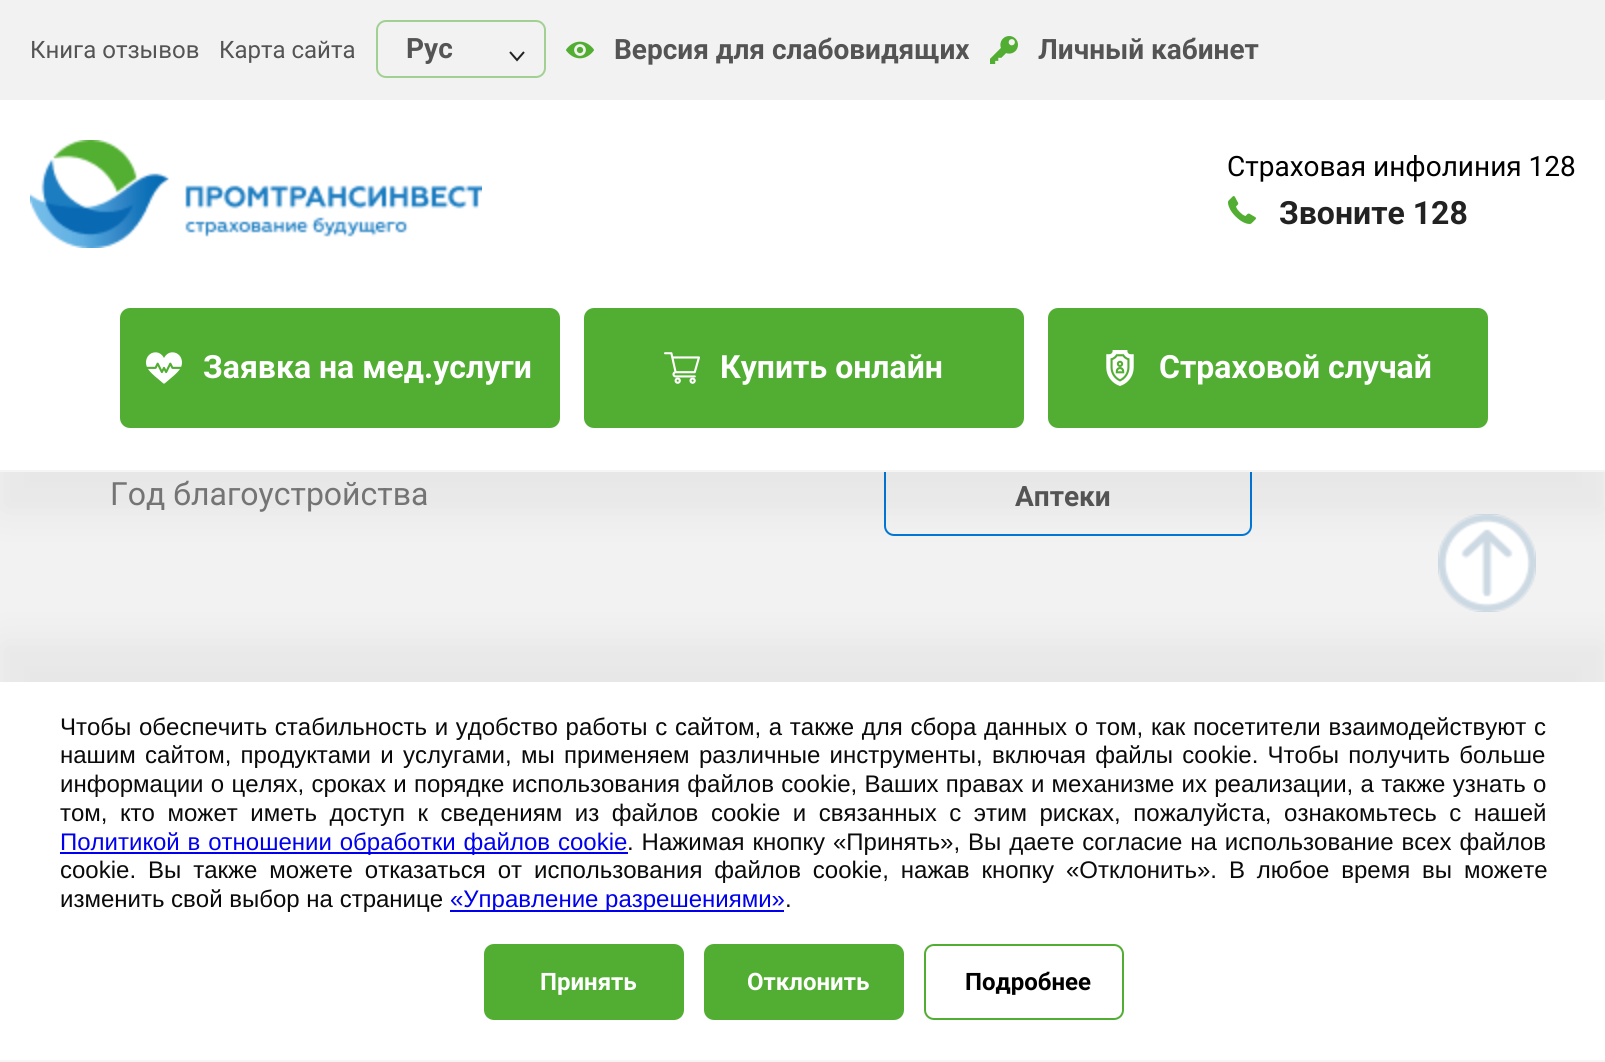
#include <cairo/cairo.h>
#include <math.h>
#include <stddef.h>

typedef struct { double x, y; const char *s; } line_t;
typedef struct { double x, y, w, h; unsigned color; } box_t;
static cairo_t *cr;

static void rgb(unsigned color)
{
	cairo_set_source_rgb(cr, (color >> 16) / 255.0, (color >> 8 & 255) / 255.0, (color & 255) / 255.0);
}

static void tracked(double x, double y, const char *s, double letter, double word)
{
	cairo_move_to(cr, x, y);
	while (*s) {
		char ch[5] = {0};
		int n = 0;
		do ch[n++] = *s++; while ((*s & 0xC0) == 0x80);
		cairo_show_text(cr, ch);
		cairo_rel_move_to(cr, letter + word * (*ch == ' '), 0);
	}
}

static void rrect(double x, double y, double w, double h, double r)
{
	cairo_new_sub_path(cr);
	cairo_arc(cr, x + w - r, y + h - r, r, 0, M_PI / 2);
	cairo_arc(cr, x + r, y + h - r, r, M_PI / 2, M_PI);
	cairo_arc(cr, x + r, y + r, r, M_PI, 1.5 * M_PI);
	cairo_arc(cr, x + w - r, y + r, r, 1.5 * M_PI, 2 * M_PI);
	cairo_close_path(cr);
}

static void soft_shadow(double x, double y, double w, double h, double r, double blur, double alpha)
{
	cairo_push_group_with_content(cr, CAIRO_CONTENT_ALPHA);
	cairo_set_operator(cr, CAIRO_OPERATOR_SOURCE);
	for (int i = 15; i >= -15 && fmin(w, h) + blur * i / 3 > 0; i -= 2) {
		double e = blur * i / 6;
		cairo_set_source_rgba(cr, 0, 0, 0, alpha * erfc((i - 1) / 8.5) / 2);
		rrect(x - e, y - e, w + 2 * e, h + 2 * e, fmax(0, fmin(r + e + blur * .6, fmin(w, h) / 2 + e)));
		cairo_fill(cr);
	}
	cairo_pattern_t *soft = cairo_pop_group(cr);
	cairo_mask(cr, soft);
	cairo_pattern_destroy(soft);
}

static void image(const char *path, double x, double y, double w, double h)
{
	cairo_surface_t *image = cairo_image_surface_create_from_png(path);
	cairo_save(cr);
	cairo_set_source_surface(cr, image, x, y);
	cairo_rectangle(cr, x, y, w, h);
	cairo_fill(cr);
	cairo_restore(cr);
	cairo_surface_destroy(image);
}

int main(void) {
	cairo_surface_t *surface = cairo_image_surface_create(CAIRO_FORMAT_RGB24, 1605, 1062);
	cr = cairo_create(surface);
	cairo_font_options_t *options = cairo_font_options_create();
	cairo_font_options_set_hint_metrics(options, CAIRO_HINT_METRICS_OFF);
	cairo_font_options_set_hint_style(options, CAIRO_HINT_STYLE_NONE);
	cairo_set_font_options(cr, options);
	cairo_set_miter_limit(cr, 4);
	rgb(0xf2f2f2);
	cairo_paint(cr);
	rrect(885, 455, 366, 80, 9);
	rgb(0x0177d7);
	cairo_stroke(cr);
	rgb(0x000000);
	soft_shadow(0, 138, 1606, 374, 0, 20, 0.05);
	rrect(377, 21, 168, 56, 9);
	rgb(0xa2d092);
	cairo_stroke(cr);
	cairo_new_path(cr);
	cairo_move_to(cr, 510, 52);
	cairo_line_to(cr, 517, 60);
	cairo_line_to(cr, 524, 52);
	rgb(0x222222);
	cairo_stroke(cr);
	image("img/1.png", 566, 41, 28, 18);
	image("img/2.png", 990, 36, 28, 28);
	rgb(0xffffff);
	cairo_rectangle(cr, 0, 100, 1605, 370);
	cairo_fill(cr);
	rgb(0xf5f5f5);
	cairo_rectangle(cr, 0, 470, 1605, 2);
	cairo_fill(cr);
	image("img/3.png", 30, 140, 452, 108);
	image("img/4.png", 1228, 196, 28, 28);
	rgb(0x52ae32);
	rrect(121, 309, 438, 118, 9);
	cairo_fill_preserve(cr);
	cairo_stroke(cr);
	image("img/5.png", 146, 352, 36, 32);
	rrect(585, 309, 438, 118, 9);
	cairo_fill_preserve(cr);
	cairo_stroke(cr);
	image("img/6.png", 664, 352, 36, 32);
	rrect(1049, 309, 438, 118, 9);
	cairo_fill_preserve(cr);
	cairo_stroke(cr);
	image("img/7.png", 1106, 350, 28, 36);
	rgb(0x000000);
	soft_shadow(0, 642, 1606, 380, 0, 20, 0.05);
	rgb(0xffffff);
	cairo_arc(cr, 1487, 563, 49, 0, 2 * M_PI);
	cairo_fill(cr);
	image("img/8.png", 1438, 514, 98, 98);
	{
		static const box_t items[] = {
			{0, 682, 1605, 378, 0xffffff},
			{0, 1060, 1605, 2, 0xf5f5f5},
			{60, 852, 568, 2, 0x0000ee},
			{450, 910, 334, 2, 0x0000ee},
		};
		for (size_t i = 0; i < sizeof items / sizeof *items; i++) {
			rgb(items[i].color);
			cairo_rectangle(cr, items[i].x, items[i].y, items[i].w, items[i].h);
			cairo_fill(cr);
		}
	}
	rgb(0x52ae32);
	rrect(485, 945, 198, 74, 9);
	cairo_fill_preserve(cr);
	cairo_stroke(cr);
	rrect(705, 945, 198, 74, 9);
	cairo_fill_preserve(cr);
	cairo_stroke(cr);
	rrect(925, 945, 198, 74, 9);
	cairo_stroke(cr);
	cairo_select_font_face(cr, "Roboto", CAIRO_FONT_SLANT_NORMAL, CAIRO_FONT_WEIGHT_NORMAL);
	cairo_set_font_size(cr, 24);
	rgb(0x545454);
	cairo_move_to(cr, 30, 58);
	cairo_show_text(cr, "Книга отзывов");
	cairo_move_to(cr, 219, 58);
	cairo_show_text(cr, "Карта сайта");
	cairo_select_font_face(cr, "Roboto", CAIRO_FONT_SLANT_NORMAL, CAIRO_FONT_WEIGHT_BOLD);
	cairo_set_font_size(cr, 28);
	{
		static const line_t items[] = {
			{406, 58, "Руc"},
			{614, 59, "Версия для слабовидящих"},
			{1038, 59, "Личный кабинет"},
		};
		for (size_t i = 0; i < sizeof items / sizeof *items; i++) {
			cairo_move_to(cr, items[i].x, items[i].y);
			cairo_show_text(cr, items[i].s);
		}
	}
	cairo_select_font_face(cr, "Roboto", CAIRO_FONT_SLANT_NORMAL, CAIRO_FONT_WEIGHT_NORMAL);
	rgb(0x000000);
	cairo_move_to(cr, 1227, 176);
	cairo_show_text(cr, "Страховая инфолиния 128");
	cairo_select_font_face(cr, "Roboto", CAIRO_FONT_SLANT_NORMAL, CAIRO_FONT_WEIGHT_BOLD);
	cairo_set_font_size(cr, 32);
	rgb(0x222222);
	cairo_move_to(cr, 1279, 224);
	cairo_show_text(cr, "Звоните 128");
	rgb(0xffffff);
	{
		static const line_t items[] = {
			{203, 378, "Заявка на мед.услуги"},
			{720, 378, "Купить онлайн"},
			{1159, 378, "Страховой случай"},
		};
		for (size_t i = 0; i < sizeof items / sizeof *items; i++) {
			cairo_move_to(cr, items[i].x, items[i].y);
			cairo_show_text(cr, items[i].s);
		}
	}
	cairo_select_font_face(cr, "Roboto", CAIRO_FONT_SLANT_NORMAL, CAIRO_FONT_WEIGHT_NORMAL);
	rgb(0x747474);
	cairo_move_to(cr, 110, 505);
	cairo_show_text(cr, "Год благоустройства");
	cairo_select_font_face(cr, "Roboto", CAIRO_FONT_SLANT_NORMAL, CAIRO_FONT_WEIGHT_BOLD);
	cairo_set_font_size(cr, 28);
	rgb(0x545454);
	cairo_move_to(cr, 1015, 506);
	cairo_show_text(cr, "Аптеки");
	cairo_select_font_face(cr, "Liberation Sans", CAIRO_FONT_SLANT_NORMAL, CAIRO_FONT_WEIGHT_NORMAL);
	cairo_set_font_size(cr, 24);
	rgb(0x0a0a0a);
	tracked(60, 735, "Чтобы обеспечить стабильность и удобство работы с сайтом, а также для сбора данных о том, как посетители взаимодействуют с", 0, 1);
	tracked(60, 763, "нашим сайтом, продуктами и услугами, мы применяем различные инструменты, включая файлы cookie. Чтобы получить больше", 0, 2.6);
	tracked(60, 792, "информации о целях, сроках и порядке использования файлов cookie, Ваших правах и механизме их реализации, а также узнать о", 0, 0.6);
	tracked(60, 821, "том, кто может иметь доступ к сведениям из файлов cookie и связанных с этим рисках, пожалуйста, ознакомьтесь с нашей", 0, 5.9);
	rgb(0x0000ee);
	tracked(60, 850, "Политикой в отношении обработки файлов cookie", 0, 1.25);
	rgb(0x0a0a0a);
	tracked(627, 850, ". Нажимая кнопку «Принять», Вы даете согласие на использование всех файлов", 0, 1.25);
	tracked(60, 878, "cookie. Вы также можете отказаться от использования файлов cookie, нажав кнопку «Отклонить». В любое время вы можете", 0, 5.25);
	cairo_move_to(cr, 60, 907);
	cairo_show_text(cr, "изменить свой выбор на странице");
	rgb(0x0000ee);
	cairo_move_to(cr, 450, 907);
	cairo_show_text(cr, "«Управление разрешениями»");
	rgb(0x0a0a0a);
	cairo_move_to(cr, 785, 907);
	cairo_show_text(cr, ".");
	cairo_select_font_face(cr, "Roboto", CAIRO_FONT_SLANT_NORMAL, CAIRO_FONT_WEIGHT_BOLD);
	rgb(0xffffff);
	cairo_move_to(cr, 540, 990);
	cairo_show_text(cr, "Принять");
	cairo_move_to(cr, 747, 990);
	cairo_show_text(cr, "Отклонить");
	rgb(0x000000);
	cairo_move_to(cr, 965, 990);
	cairo_show_text(cr, "Подробнее");
	cairo_surface_write_to_png(surface, "page.png");
	cairo_font_options_destroy(options);
	cairo_destroy(cr);
	cairo_surface_destroy(surface);
	return 0;
}
